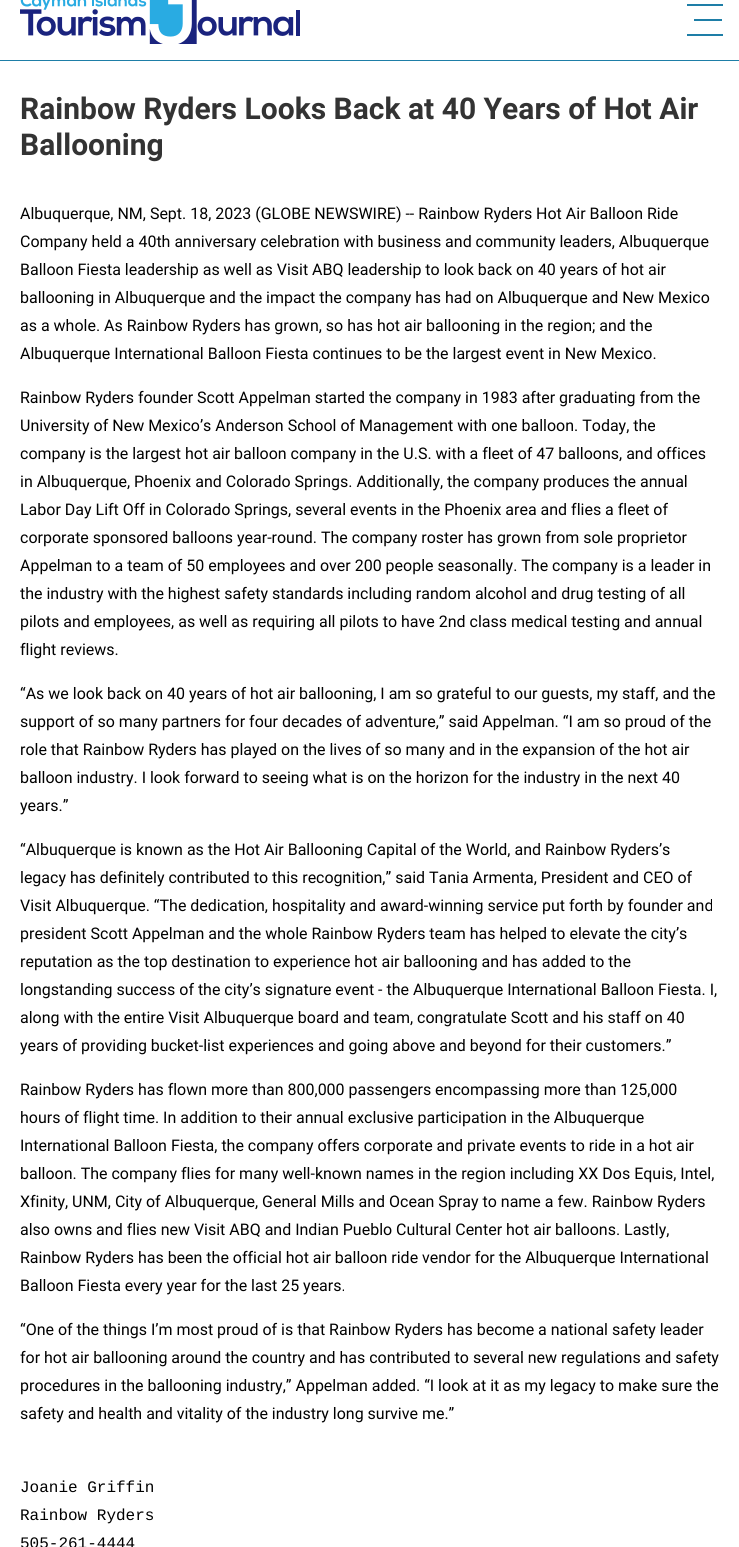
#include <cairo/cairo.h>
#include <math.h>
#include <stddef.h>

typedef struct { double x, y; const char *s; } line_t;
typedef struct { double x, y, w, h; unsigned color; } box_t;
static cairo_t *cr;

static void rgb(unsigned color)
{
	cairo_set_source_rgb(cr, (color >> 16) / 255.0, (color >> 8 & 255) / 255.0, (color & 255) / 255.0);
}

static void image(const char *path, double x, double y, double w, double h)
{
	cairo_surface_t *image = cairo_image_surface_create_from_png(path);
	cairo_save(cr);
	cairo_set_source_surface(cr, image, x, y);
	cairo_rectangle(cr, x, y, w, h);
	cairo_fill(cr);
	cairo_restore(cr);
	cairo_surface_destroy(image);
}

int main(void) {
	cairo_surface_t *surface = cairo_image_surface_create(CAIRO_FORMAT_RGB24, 739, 1547);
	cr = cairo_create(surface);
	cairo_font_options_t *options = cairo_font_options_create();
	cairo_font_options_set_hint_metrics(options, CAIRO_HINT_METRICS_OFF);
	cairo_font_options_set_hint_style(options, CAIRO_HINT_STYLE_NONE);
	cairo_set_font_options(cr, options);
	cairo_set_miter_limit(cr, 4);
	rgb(0xffffff);
	cairo_paint(cr);
	image("img/1.png", 20, 0, 280, 44);
	{
		static const box_t items[] = {
			{687, 4, 36, 2, 0x1e7ea7},
			{694, 19, 28, 2, 0x1e7ea7},
			{687, 34, 36, 2, 0x1e7ea7},
			{0, 60, 739, 1, 0x1e7ea7},
		};
		for (size_t i = 0; i < sizeof items / sizeof *items; i++) {
			rgb(items[i].color);
			cairo_rectangle(cr, items[i].x, items[i].y, items[i].w, items[i].h);
			cairo_fill(cr);
		}
	}
	cairo_select_font_face(cr, "Roboto", CAIRO_FONT_SLANT_NORMAL, CAIRO_FONT_WEIGHT_BOLD);
	cairo_set_font_size(cr, 30);
	rgb(0x333333);
	cairo_move_to(cr, 20, 119);
	cairo_show_text(cr, "Rainbow Ryders Looks Back at 40 Years of Hot Air");
	cairo_move_to(cr, 20, 155);
	cairo_show_text(cr, "Ballooning");
	cairo_select_font_face(cr, "Roboto", CAIRO_FONT_SLANT_NORMAL, CAIRO_FONT_WEIGHT_NORMAL);
	cairo_set_font_size(cr, 16);
	rgb(0x000000);
	{
		static const line_t items[] = {
			{20, 219, "Albuquerque, NM, Sept. 18, 2023 (GLOBE NEWSWIRE) -- Rainbow Ryders Hot Air Balloon Ride"},
			{20, 247, "Company held a 40th anniversary celebration with business and community leaders, Albuquerque"},
			{20, 275, "Balloon Fiesta leadership as well as Visit ABQ leadership to look back on 40 years of hot air"},
			{20, 303, "ballooning in Albuquerque and the impact the company has had on Albuquerque and New Mexico"},
			{20, 331, "as a whole. As Rainbow Ryders has grown, so has hot air ballooning in the region; and the"},
			{20, 359, "Albuquerque International Balloon Fiesta continues to be the largest event in New Mexico."},
			{20, 403, "Rainbow Ryders founder Scott Appelman started the company in 1983 after graduating from the"},
			{20, 431, "University of New Mexico’s Anderson School of Management with one balloon. Today, the"},
			{20, 459, "company is the largest hot air balloon company in the U.S. with a fleet of 47 balloons, and offices"},
			{20, 487, "in Albuquerque, Phoenix and Colorado Springs. Additionally, the company produces the annual"},
			{20, 515, "Labor Day Lift Off in Colorado Springs, several events in the Phoenix area and flies a fleet of"},
			{20, 543, "corporate sponsored balloons year-round. The company roster has grown from sole proprietor"},
			{20, 571, "Appelman to a team of 50 employees and over 200 people seasonally. The company is a leader in"},
			{20, 599, "the industry with the highest safety standards including random alcohol and drug testing of all"},
			{20, 627, "pilots and employees, as well as requiring all pilots to have 2nd class medical testing and annual"},
			{20, 655, "flight reviews."},
			{20, 699, "“As we look back on 40 years of hot air ballooning, I am so grateful to our guests, my staff, and the"},
			{20, 727, "support of so many partners for four decades of adventure,” said Appelman. “I am so proud of the"},
			{20, 755, "role that Rainbow Ryders has played on the lives of so many and in the expansion of the hot air"},
			{20, 783, "balloon industry. I look forward to seeing what is on the horizon for the industry in the next 40"},
			{20, 811, "years.”"},
			{20, 855, "“Albuquerque is known as the Hot Air Ballooning Capital of the World, and Rainbow Ryders’s"},
			{20, 883, "legacy has definitely contributed to this recognition,” said Tania Armenta, President and CEO of"},
			{20, 911, "Visit Albuquerque. “The dedication, hospitality and award-winning service put forth by founder and"},
			{20, 939, "president Scott Appelman and the whole Rainbow Ryders team has helped to elevate the city’s"},
			{20, 967, "reputation as the top destination to experience hot air ballooning and has added to the"},
			{20, 995, "longstanding success of the city’s signature event - the Albuquerque International Balloon Fiesta. I,"},
			{20, 1023, "along with the entire Visit Albuquerque board and team, congratulate Scott and his staff on 40"},
			{20, 1051, "years of providing bucket-list experiences and going above and beyond for their customers.”"},
			{20, 1095, "Rainbow Ryders has flown more than 800,000 passengers encompassing more than 125,000"},
			{20, 1123, "hours of flight time. In addition to their annual exclusive participation in the Albuquerque"},
			{20, 1151, "International Balloon Fiesta, the company offers corporate and private events to ride in a hot air"},
			{20, 1179, "balloon. The company flies for many well-known names in the region including XX Dos Equis, Intel,"},
			{20, 1207, "Xfinity, UNM, City of Albuquerque, General Mills and Ocean Spray to name a few. Rainbow Ryders"},
			{20, 1235, "also owns and flies new Visit ABQ and Indian Pueblo Cultural Center hot air balloons. Lastly,"},
			{20, 1263, "Rainbow Ryders has been the official hot air balloon ride vendor for the Albuquerque International"},
			{20, 1291, "Balloon Fiesta every year for the last 25 years."},
			{20, 1335, "“One of the things I’m most proud of is that Rainbow Ryders has become a national safety leader"},
			{20, 1363, "for hot air ballooning around the country and has contributed to several new regulations and safety"},
			{20, 1391, "procedures in the ballooning industry,” Appelman added. “I look at it as my legacy to make sure the"},
			{20, 1419, "safety and health and vitality of the industry long survive me.”"},
		};
		for (size_t i = 0; i < sizeof items / sizeof *items; i++) {
			cairo_move_to(cr, items[i].x, items[i].y);
			cairo_show_text(cr, items[i].s);
		}
	}
	cairo_select_font_face(cr, "Liberation Mono", CAIRO_FONT_SLANT_NORMAL, CAIRO_FONT_WEIGHT_NORMAL);
	{
		static const line_t items[] = {
			{20, 1492, "Joanie Griffin"},
			{20, 1520, "Rainbow Ryders"},
			{20, 1548, "505-261-4444"},
		};
		for (size_t i = 0; i < sizeof items / sizeof *items; i++) {
			cairo_move_to(cr, items[i].x, items[i].y);
			cairo_show_text(cr, items[i].s);
		}
	}
	cairo_surface_write_to_png(surface, "page.png");
	cairo_font_options_destroy(options);
	cairo_destroy(cr);
	cairo_surface_destroy(surface);
	return 0;
}
